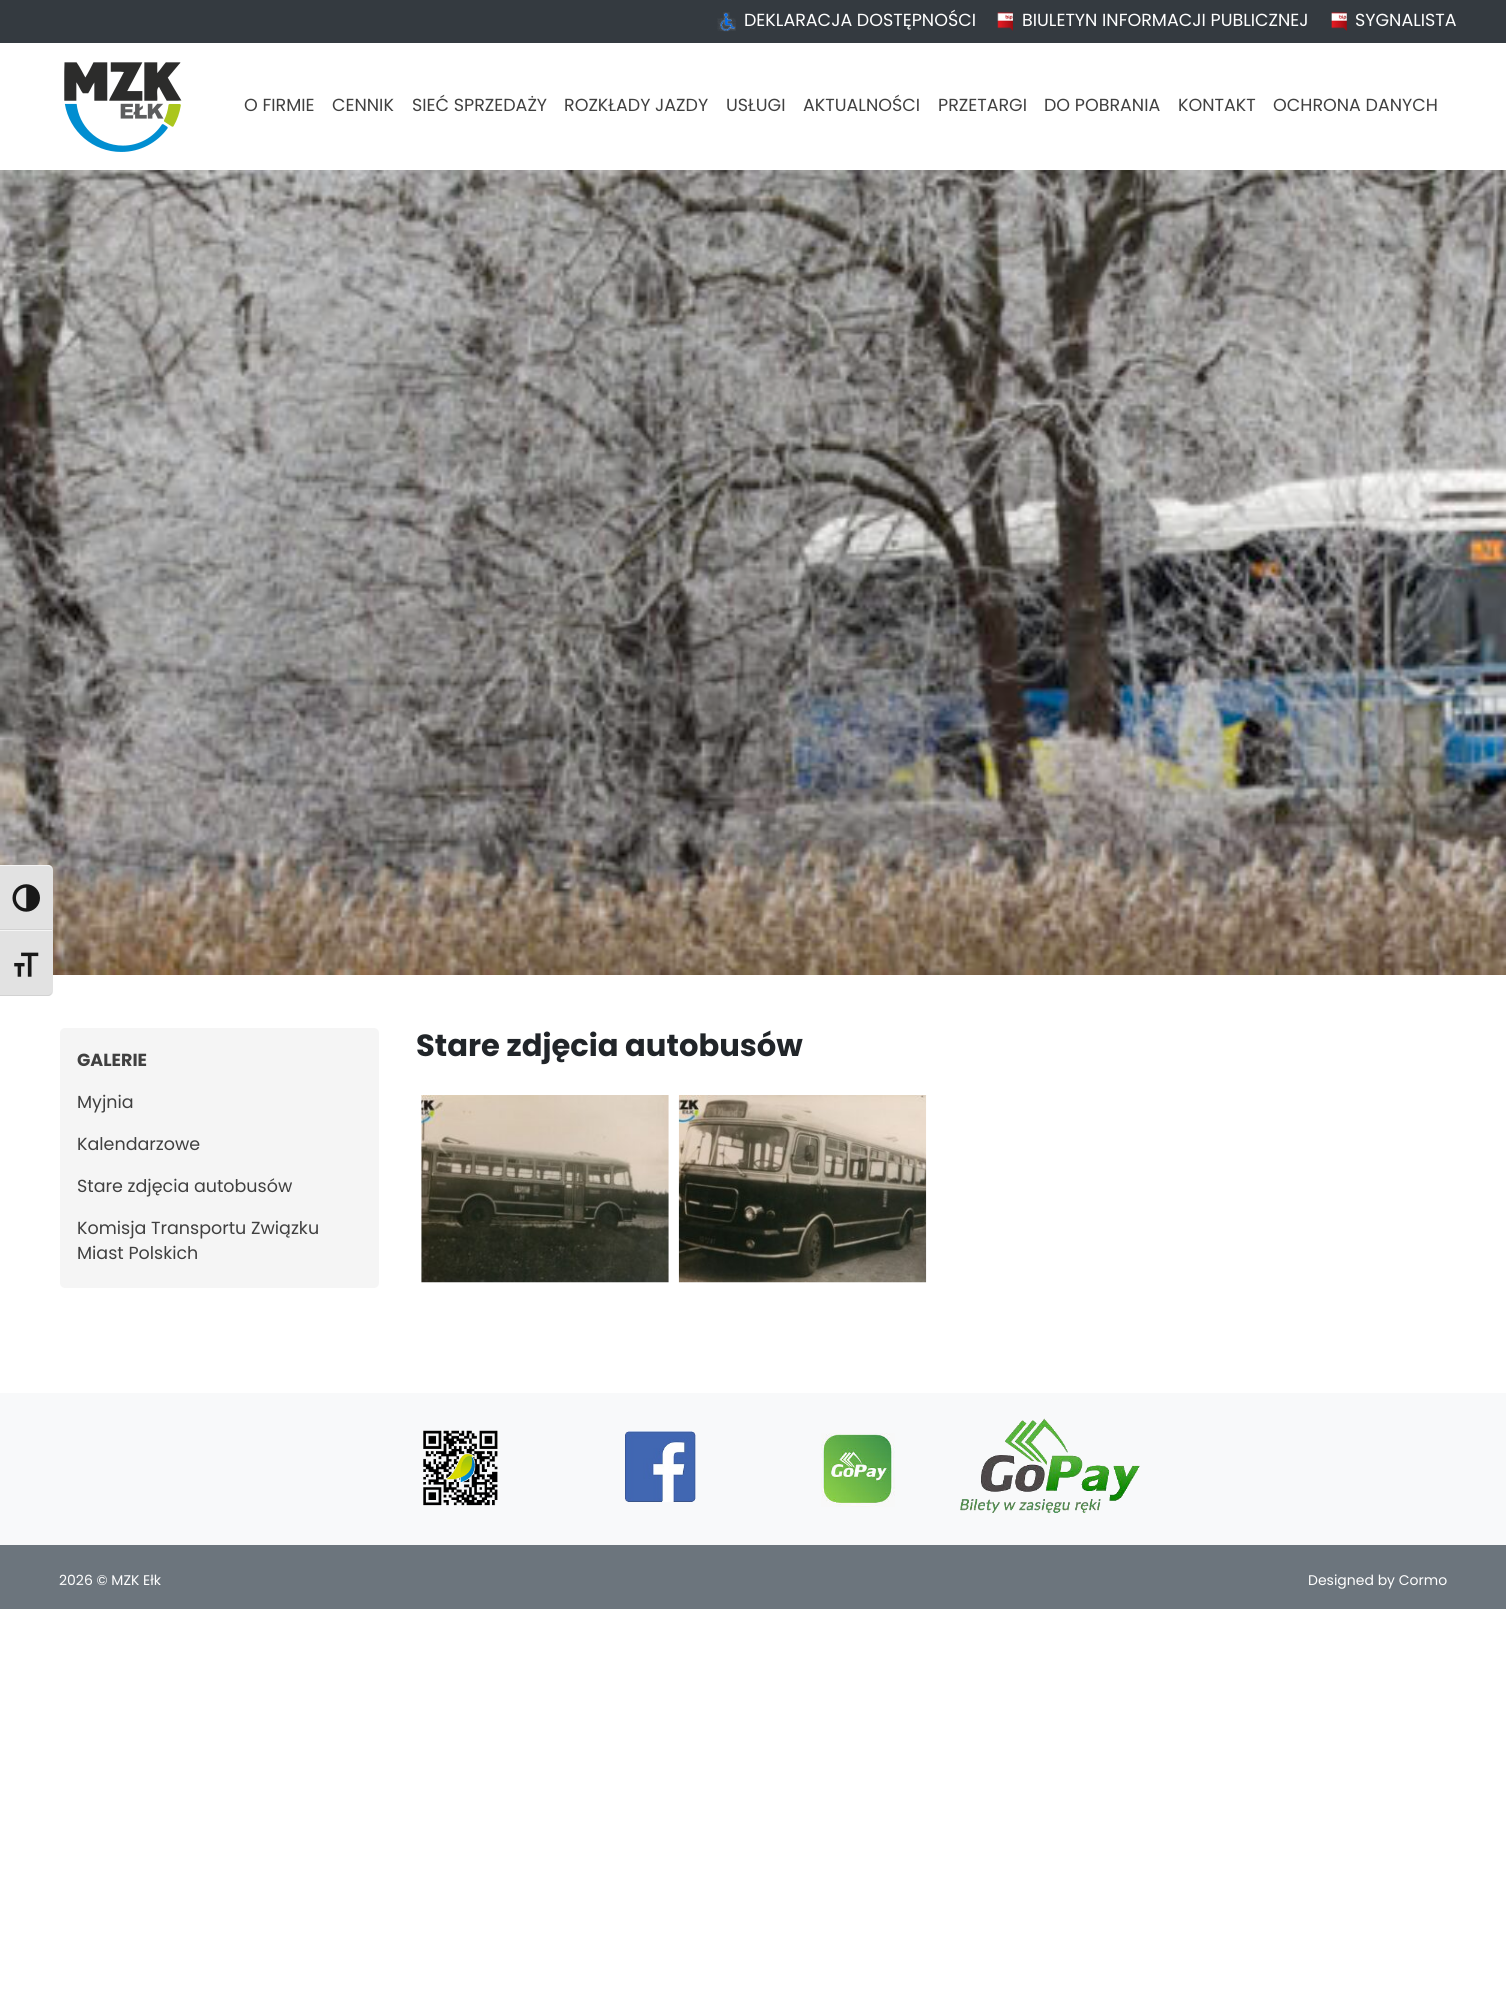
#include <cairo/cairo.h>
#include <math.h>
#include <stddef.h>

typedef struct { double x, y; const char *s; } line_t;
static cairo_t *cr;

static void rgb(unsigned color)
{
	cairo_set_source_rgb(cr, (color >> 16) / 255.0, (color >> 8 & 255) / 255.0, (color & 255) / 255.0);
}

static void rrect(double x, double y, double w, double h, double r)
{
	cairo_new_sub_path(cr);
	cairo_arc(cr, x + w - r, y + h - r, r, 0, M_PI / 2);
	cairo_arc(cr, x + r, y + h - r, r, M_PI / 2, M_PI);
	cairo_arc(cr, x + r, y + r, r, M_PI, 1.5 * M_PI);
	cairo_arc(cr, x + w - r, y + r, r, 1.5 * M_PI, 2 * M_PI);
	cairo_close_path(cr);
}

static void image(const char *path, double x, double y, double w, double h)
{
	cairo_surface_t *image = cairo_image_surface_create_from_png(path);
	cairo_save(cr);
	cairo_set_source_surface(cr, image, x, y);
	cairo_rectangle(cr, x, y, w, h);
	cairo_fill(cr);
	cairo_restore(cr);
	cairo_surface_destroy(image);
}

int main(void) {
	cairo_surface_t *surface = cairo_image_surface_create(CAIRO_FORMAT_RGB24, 1506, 2011);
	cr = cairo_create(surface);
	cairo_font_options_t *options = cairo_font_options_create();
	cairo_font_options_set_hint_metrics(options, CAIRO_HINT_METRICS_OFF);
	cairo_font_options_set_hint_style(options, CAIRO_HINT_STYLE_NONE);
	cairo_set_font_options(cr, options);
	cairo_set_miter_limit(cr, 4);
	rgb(0xffffff);
	cairo_paint(cr);
	rgb(0x343a40);
	cairo_rectangle(cr, 0, 0, 1506, 43);
	cairo_fill(cr);
	image("img/1.png", 717, 12, 19, 20);
	image("img/2.png", 997, 12, 16, 19);
	image("img/3.png", 1331, 12, 16, 19);
	image("img/4.png", 64, 62, 118, 90);
	image("img/5.png", 0, 170, 1506, 805);
	rgb(0xe2e2e2);
	cairo_new_path(cr);
	cairo_move_to(cr, 0, 865);
	cairo_line_to(cr, 48, 865);
	cairo_curve_to(cr, 51, 865, 53, 867, 53, 870);
	cairo_line_to(cr, 53, 930);
	cairo_line_to(cr, 0, 930);
	cairo_close_path(cr);
	cairo_fill(cr);
	rgb(0xf5f5f5);
	cairo_new_path(cr);
	cairo_move_to(cr, 0, 865);
	cairo_line_to(cr, 0, 866);
	cairo_line_to(cr, 48, 866);
	cairo_curve_to(cr, 50, 866, 52, 868, 52, 870);
	cairo_curve_to(cr, 52, 867, 50, 865, 48, 865);
	cairo_close_path(cr);
	cairo_fill(cr);
	rgb(0xd2d2d2);
	cairo_rectangle(cr, 0, 929, 52, 1);
	cairo_fill(cr);
	image("img/6.png", 12, 884, 28, 28);
	rgb(0xe2e2e2);
	cairo_new_path(cr);
	cairo_move_to(cr, 0, 930);
	cairo_line_to(cr, 53, 930);
	cairo_line_to(cr, 53, 991);
	cairo_curve_to(cr, 53, 994, 51, 996, 48, 996);
	cairo_line_to(cr, 0, 996);
	cairo_close_path(cr);
	cairo_fill(cr);
	rgb(0xf5f5f5);
	cairo_rectangle(cr, 0, 930, 52, 1);
	cairo_fill(cr);
	rgb(0xd2d2d2);
	cairo_new_path(cr);
	cairo_move_to(cr, 48, 996);
	cairo_curve_to(cr, 50, 996, 52, 994, 52, 991);
	cairo_curve_to(cr, 52, 993, 50, 995, 48, 995);
	cairo_line_to(cr, 0, 995);
	cairo_line_to(cr, 0, 996);
	cairo_close_path(cr);
	cairo_fill(cr);
	image("img/7.png", 14, 952, 25, 25);
	image("img/8.png", 421, 1095, 248, 188);
	image("img/9.png", 678, 1095, 249, 188);
	rgb(0xf5f5f5);
	rrect(60, 1028, 319, 260, 5);
	cairo_fill(cr);
	rgb(0xf8f9fa);
	cairo_rectangle(cr, 0, 1393, 1506, 152);
	cairo_fill(cr);
	image("img/10.png", 423, 1430, 75, 76);
	image("img/11.png", 625, 1431, 71, 71);
	image("img/12.png", 821, 1433, 74, 74);
	image("img/13.png", 960, 1418, 180, 95);
	rgb(0x6c757d);
	cairo_rectangle(cr, 0, 1545, 1506, 64);
	cairo_fill(cr);
	cairo_select_font_face(cr, "Poppins", CAIRO_FONT_SLANT_NORMAL, CAIRO_FONT_WEIGHT_NORMAL);
	cairo_set_font_size(cr, 17.5);
	rgb(0xffffff);
	{
		static const line_t items[] = {
			{744, 26, "DEKLARACJA DOSTĘPNOŚCI"},
			{1022, 26, "BIULETYN INFORMACJI PUBLICZNEJ"},
			{1355, 26, "SYGNALISTA"},
		};
		for (size_t i = 0; i < sizeof items / sizeof *items; i++) {
			cairo_move_to(cr, items[i].x, items[i].y);
			cairo_show_text(cr, items[i].s);
		}
	}
	rgb(0x404040);
	{
		static const line_t items[] = {
			{244, 111, "O FIRMIE"},
			{332, 111, "CENNIK"},
			{412, 111, "SIEĆ SPRZEDAŻY"},
			{564, 111, "ROZKŁADY JAZDY"},
			{726, 111, "USŁUGI"},
			{803, 111, "AKTUALNOŚCI"},
			{938, 111, "PRZETARGI"},
			{1044, 111, "DO POBRANIA"},
			{1178, 111, "KONTAKT"},
			{1273, 111, "OCHRONA DANYCH"},
		};
		for (size_t i = 0; i < sizeof items / sizeof *items; i++) {
			cairo_move_to(cr, items[i].x, items[i].y);
			cairo_show_text(cr, items[i].s);
		}
	}
	cairo_select_font_face(cr, "Poppins", CAIRO_FONT_SLANT_NORMAL, CAIRO_FONT_WEIGHT_BOLD);
	cairo_set_font_size(cr, 30.6);
	rgb(0x212529);
	cairo_move_to(cr, 416, 1056);
	cairo_show_text(cr, "Stare zdjęcia autobusów");
	cairo_set_font_size(cr, 17.5);
	rgb(0x404040);
	cairo_move_to(cr, 77, 1066);
	cairo_show_text(cr, "GALERIE");
	cairo_select_font_face(cr, "Poppins", CAIRO_FONT_SLANT_NORMAL, CAIRO_FONT_WEIGHT_NORMAL);
	{
		static const line_t items[] = {
			{77, 1108, "Myjnia"},
			{77, 1150, "Kalendarzowe"},
			{77, 1192, "Stare zdjęcia autobusów"},
			{77, 1234, "Komisja Transportu Związku"},
			{77, 1259, "Miast Polskich"},
		};
		for (size_t i = 0; i < sizeof items / sizeof *items; i++) {
			cairo_move_to(cr, items[i].x, items[i].y);
			cairo_show_text(cr, items[i].s);
		}
	}
	cairo_set_font_size(cr, 14);
	rgb(0xffffff);
	cairo_move_to(cr, 59, 1585);
	cairo_show_text(cr, "2026 © MZK Ełk");
	cairo_move_to(cr, 1308, 1585);
	cairo_show_text(cr, "Designed by Cormo");
	cairo_surface_write_to_png(surface, "page.png");
	cairo_font_options_destroy(options);
	cairo_destroy(cr);
	cairo_surface_destroy(surface);
	return 0;
}
